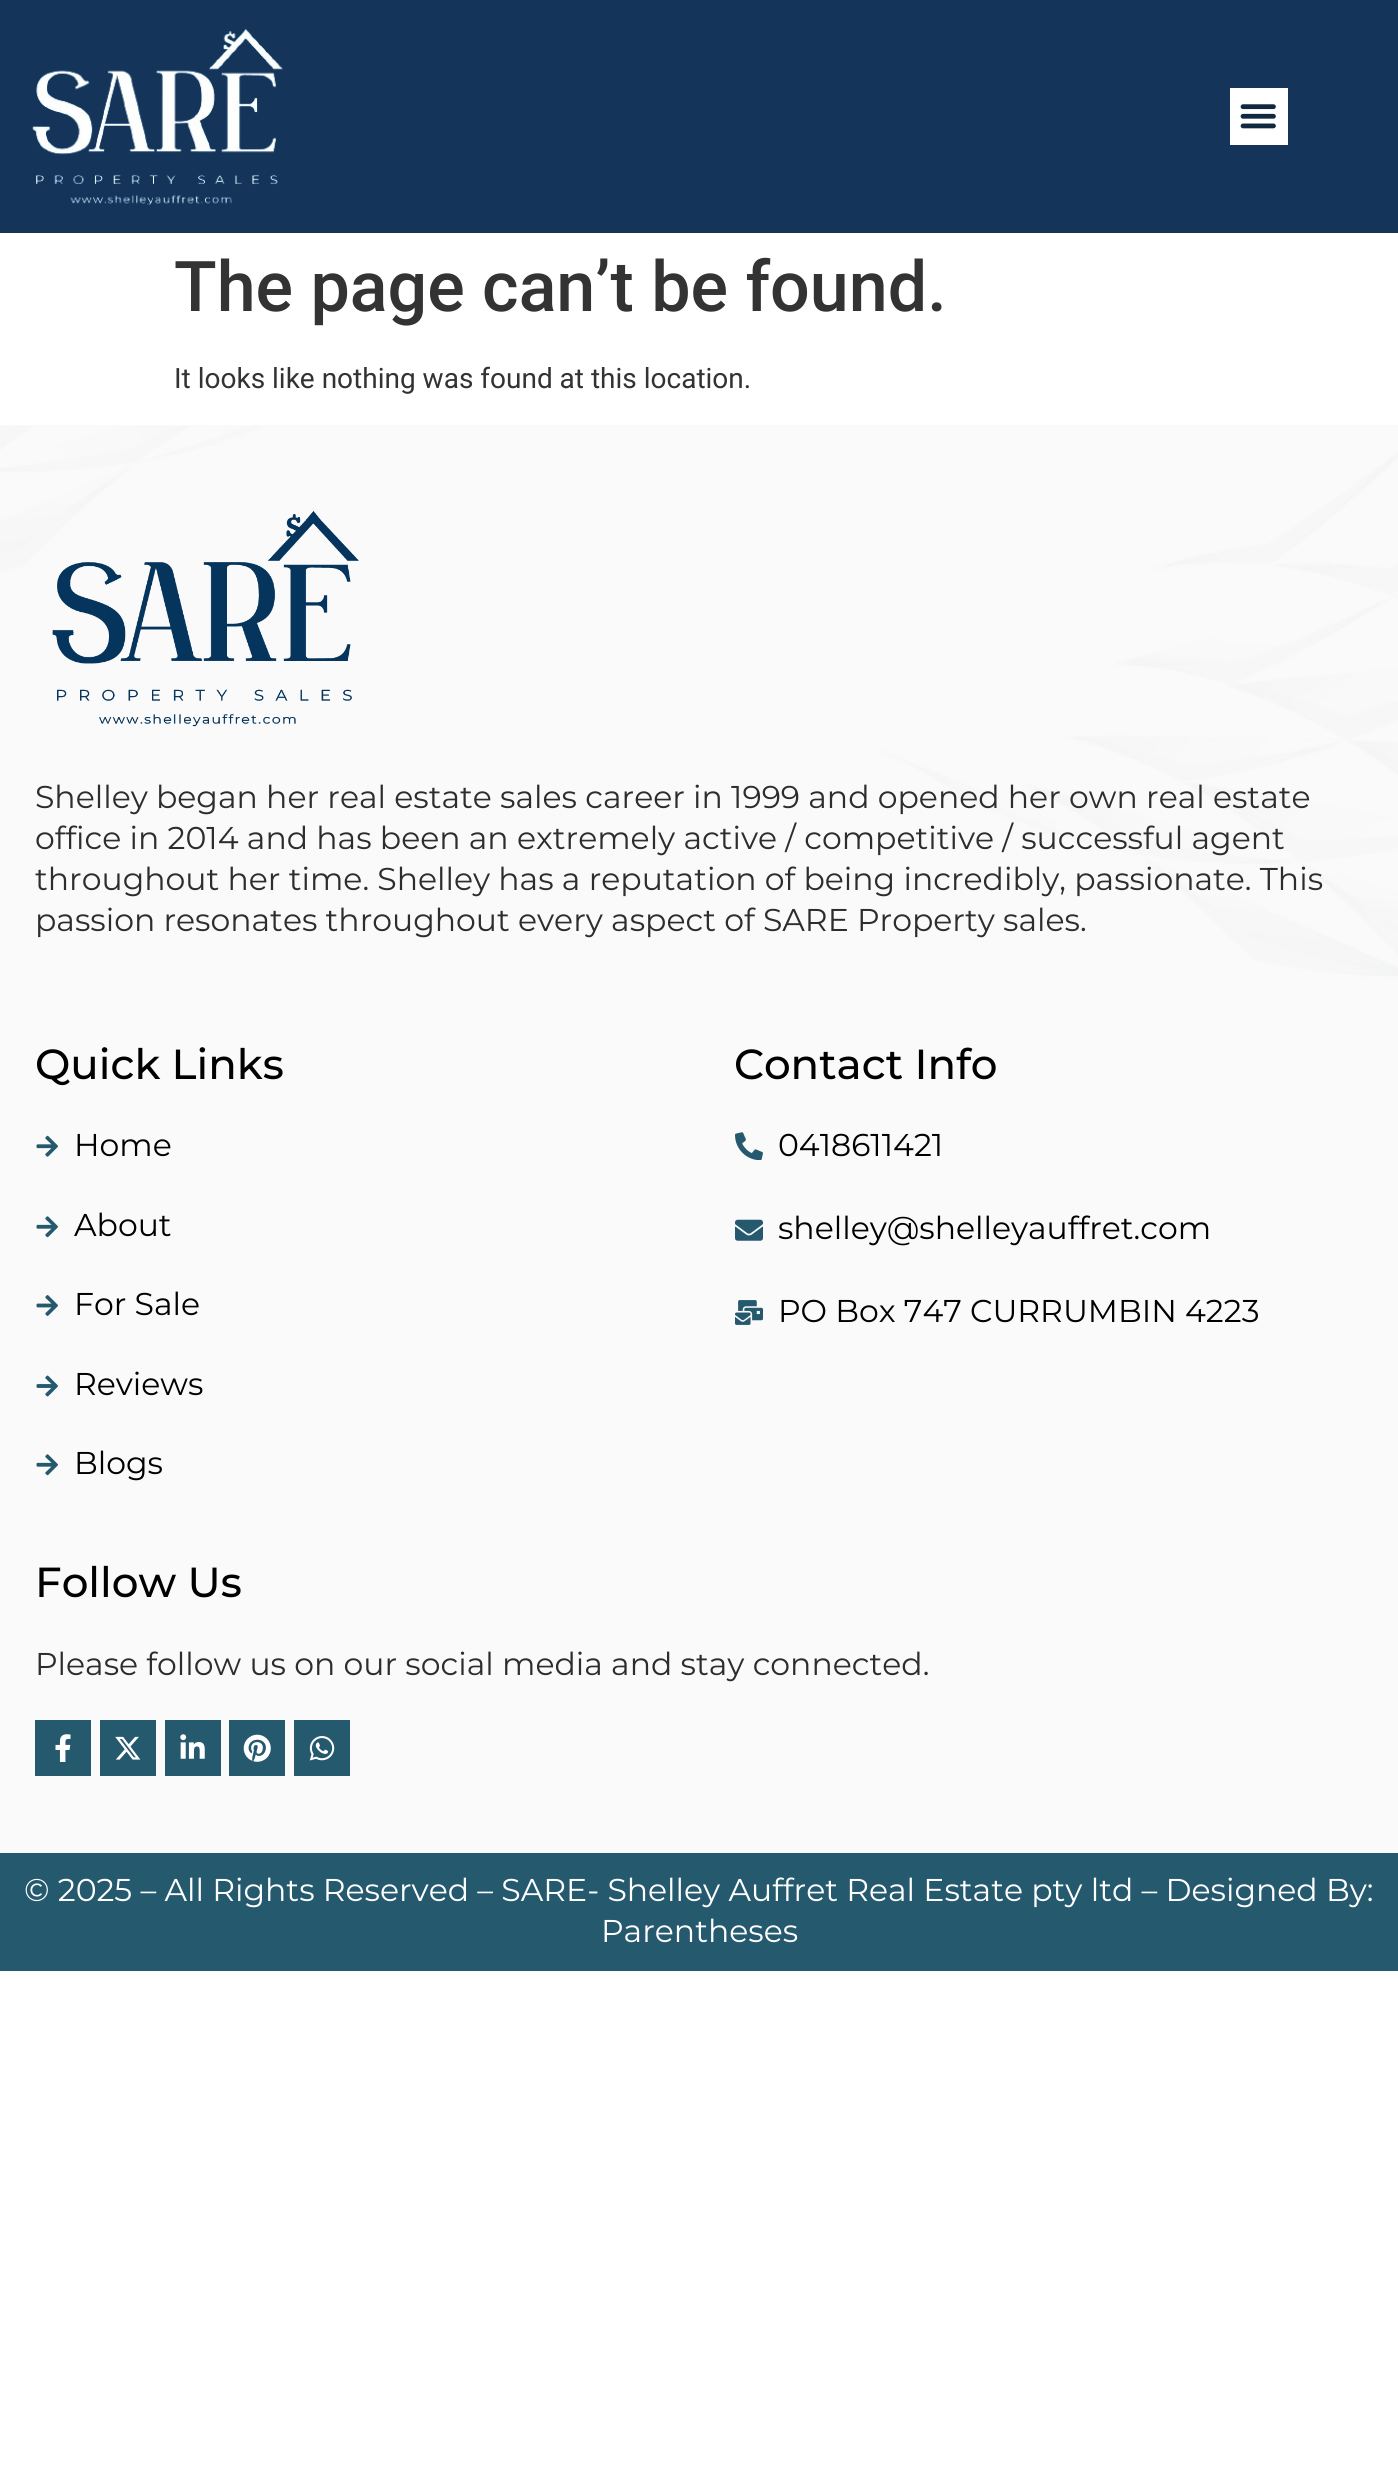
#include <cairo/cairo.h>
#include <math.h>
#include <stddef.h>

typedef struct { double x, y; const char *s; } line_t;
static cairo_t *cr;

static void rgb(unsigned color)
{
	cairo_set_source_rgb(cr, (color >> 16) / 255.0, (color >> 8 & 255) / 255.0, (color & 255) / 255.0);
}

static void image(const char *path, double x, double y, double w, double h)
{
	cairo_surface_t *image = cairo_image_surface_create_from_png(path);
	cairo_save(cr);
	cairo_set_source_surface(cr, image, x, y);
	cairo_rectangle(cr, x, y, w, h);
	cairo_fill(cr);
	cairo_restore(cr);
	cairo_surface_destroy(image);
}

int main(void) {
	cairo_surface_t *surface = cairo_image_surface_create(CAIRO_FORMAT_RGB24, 1398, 2470);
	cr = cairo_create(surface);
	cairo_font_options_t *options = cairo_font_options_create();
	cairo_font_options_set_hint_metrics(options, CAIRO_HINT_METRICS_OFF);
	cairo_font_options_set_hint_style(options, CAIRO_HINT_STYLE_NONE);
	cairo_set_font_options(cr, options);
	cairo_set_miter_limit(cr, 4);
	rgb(0xffffff);
	cairo_paint(cr);
	rgb(0xfafafa);
	cairo_rectangle(cr, 0, 425, 1398, 1428);
	cairo_fill(cr);
	rgb(0x14345a);
	cairo_rectangle(cr, 0, 0, 1398, 233);
	cairo_fill(cr);
	image("img/1.png", 32, 29, 251, 177);
	rgb(0xffffff);
	cairo_rectangle(cr, 1230, 88, 58, 57);
	cairo_fill(cr);
	image("img/2.png", 1240, 104, 36, 25);
	image("img/3.png", 0, 426, 1398, 551);
	image("img/4.png", 52, 510, 307, 217);
	image("img/5.png", 36, 1135, 22, 22);
	image("img/6.png", 36, 1216, 22, 22);
	image("img/7.png", 36, 1295, 22, 21);
	image("img/8.png", 36, 1375, 22, 22);
	image("img/6.png", 36, 1454, 22, 22);
	image("img/9.png", 735, 1132, 28, 28);
	image("img/10.png", 735, 1219, 28, 22);
	image("img/11.png", 735, 1300, 28, 25);
	rgb(0x25596e);
	cairo_rectangle(cr, 35, 1720, 56, 56);
	cairo_fill(cr);
	image("img/12.png", 55, 1734, 16, 28);
	cairo_rectangle(cr, 100, 1720, 56, 56);
	cairo_fill(cr);
	image("img/13.png", 115, 1736, 26, 24);
	cairo_rectangle(cr, 165, 1720, 56, 56);
	cairo_fill(cr);
	image("img/14.png", 180, 1734, 25, 25);
	cairo_rectangle(cr, 229, 1720, 56, 56);
	cairo_fill(cr);
	image("img/15.png", 243, 1734, 28, 28);
	cairo_rectangle(cr, 294, 1720, 56, 56);
	cairo_fill(cr);
	image("img/16.png", 309, 1736, 26, 25);
	cairo_rectangle(cr, 0, 1853, 1398, 118);
	cairo_fill(cr);
	cairo_select_font_face(cr, "Roboto Medium", CAIRO_FONT_SLANT_NORMAL, CAIRO_FONT_WEIGHT_NORMAL);
	cairo_set_font_size(cr, 70);
	rgb(0x333333);
	cairo_move_to(cr, 174, 311);
	cairo_show_text(cr, "The page can’t be found.");
	cairo_select_font_face(cr, "Roboto", CAIRO_FONT_SLANT_NORMAL, CAIRO_FONT_WEIGHT_NORMAL);
	cairo_set_font_size(cr, 28);
	cairo_move_to(cr, 174, 388);
	cairo_show_text(cr, "It looks like nothing was found at this location.");
	cairo_select_font_face(cr, "Montserrat", CAIRO_FONT_SLANT_NORMAL, CAIRO_FONT_WEIGHT_NORMAL);
	cairo_set_font_size(cr, 31.5);
	rgb(0x2d2d2d);
	{
		static const line_t items[] = {
			{35, 808, "Shelley began her real estate sales career in 1999 and opened her own real estate"},
			{35, 849, "office in 2014 and has been an extremely active / competitive / successful agent"},
			{35, 890, "throughout her time. Shelley has a reputation of being incredibly, passionate. This"},
			{35, 931, "passion resonates throughout every aspect of SARE Property sales."},
		};
		for (size_t i = 0; i < sizeof items / sizeof *items; i++) {
			cairo_move_to(cr, items[i].x, items[i].y);
			cairo_show_text(cr, items[i].s);
		}
	}
	cairo_select_font_face(cr, "Montserrat Medium", CAIRO_FONT_SLANT_NORMAL, CAIRO_FONT_WEIGHT_NORMAL);
	cairo_set_font_size(cr, 42);
	rgb(0x000000);
	cairo_move_to(cr, 35, 1079);
	cairo_show_text(cr, "Quick Links");
	cairo_select_font_face(cr, "Montserrat", CAIRO_FONT_SLANT_NORMAL, CAIRO_FONT_WEIGHT_NORMAL);
	cairo_set_font_size(cr, 31.5);
	{
		static const line_t items[] = {
			{74, 1156, "Home"},
			{74, 1236, "About"},
			{74, 1315, "For Sale"},
			{74, 1395, "Reviews"},
			{74, 1474, "Blogs"},
		};
		for (size_t i = 0; i < sizeof items / sizeof *items; i++) {
			cairo_move_to(cr, items[i].x, items[i].y);
			cairo_show_text(cr, items[i].s);
		}
	}
	cairo_select_font_face(cr, "Montserrat Medium", CAIRO_FONT_SLANT_NORMAL, CAIRO_FONT_WEIGHT_NORMAL);
	cairo_set_font_size(cr, 42);
	cairo_move_to(cr, 734, 1079);
	cairo_show_text(cr, "Contact Info");
	cairo_select_font_face(cr, "Montserrat", CAIRO_FONT_SLANT_NORMAL, CAIRO_FONT_WEIGHT_NORMAL);
	cairo_set_font_size(cr, 31.5);
	{
		static const line_t items[] = {
			{778, 1156, "0418611421"},
			{778, 1239, "shelley@shelleyauffret.com"},
			{778, 1322, "PO Box 747 CURRUMBIN 4223"},
		};
		for (size_t i = 0; i < sizeof items / sizeof *items; i++) {
			cairo_move_to(cr, items[i].x, items[i].y);
			cairo_show_text(cr, items[i].s);
		}
	}
	cairo_select_font_face(cr, "Montserrat Medium", CAIRO_FONT_SLANT_NORMAL, CAIRO_FONT_WEIGHT_NORMAL);
	cairo_set_font_size(cr, 42);
	cairo_move_to(cr, 35, 1597);
	cairo_show_text(cr, "Follow Us");
	cairo_select_font_face(cr, "Montserrat", CAIRO_FONT_SLANT_NORMAL, CAIRO_FONT_WEIGHT_NORMAL);
	cairo_set_font_size(cr, 31.5);
	rgb(0x2d2d2d);
	cairo_move_to(cr, 35, 1675);
	cairo_show_text(cr, "Please follow us on our social media and stay connected.");
	rgb(0xffffff);
	cairo_move_to(cr, 24, 1901);
	cairo_show_text(cr, "© 2025 – All Rights Reserved – SARE- Shelley Auffret Real Estate pty ltd – Designed By:");
	cairo_move_to(cr, 601, 1942);
	cairo_show_text(cr, "Parentheses");
	cairo_surface_write_to_png(surface, "page.png");
	cairo_font_options_destroy(options);
	cairo_destroy(cr);
	cairo_surface_destroy(surface);
	return 0;
}
